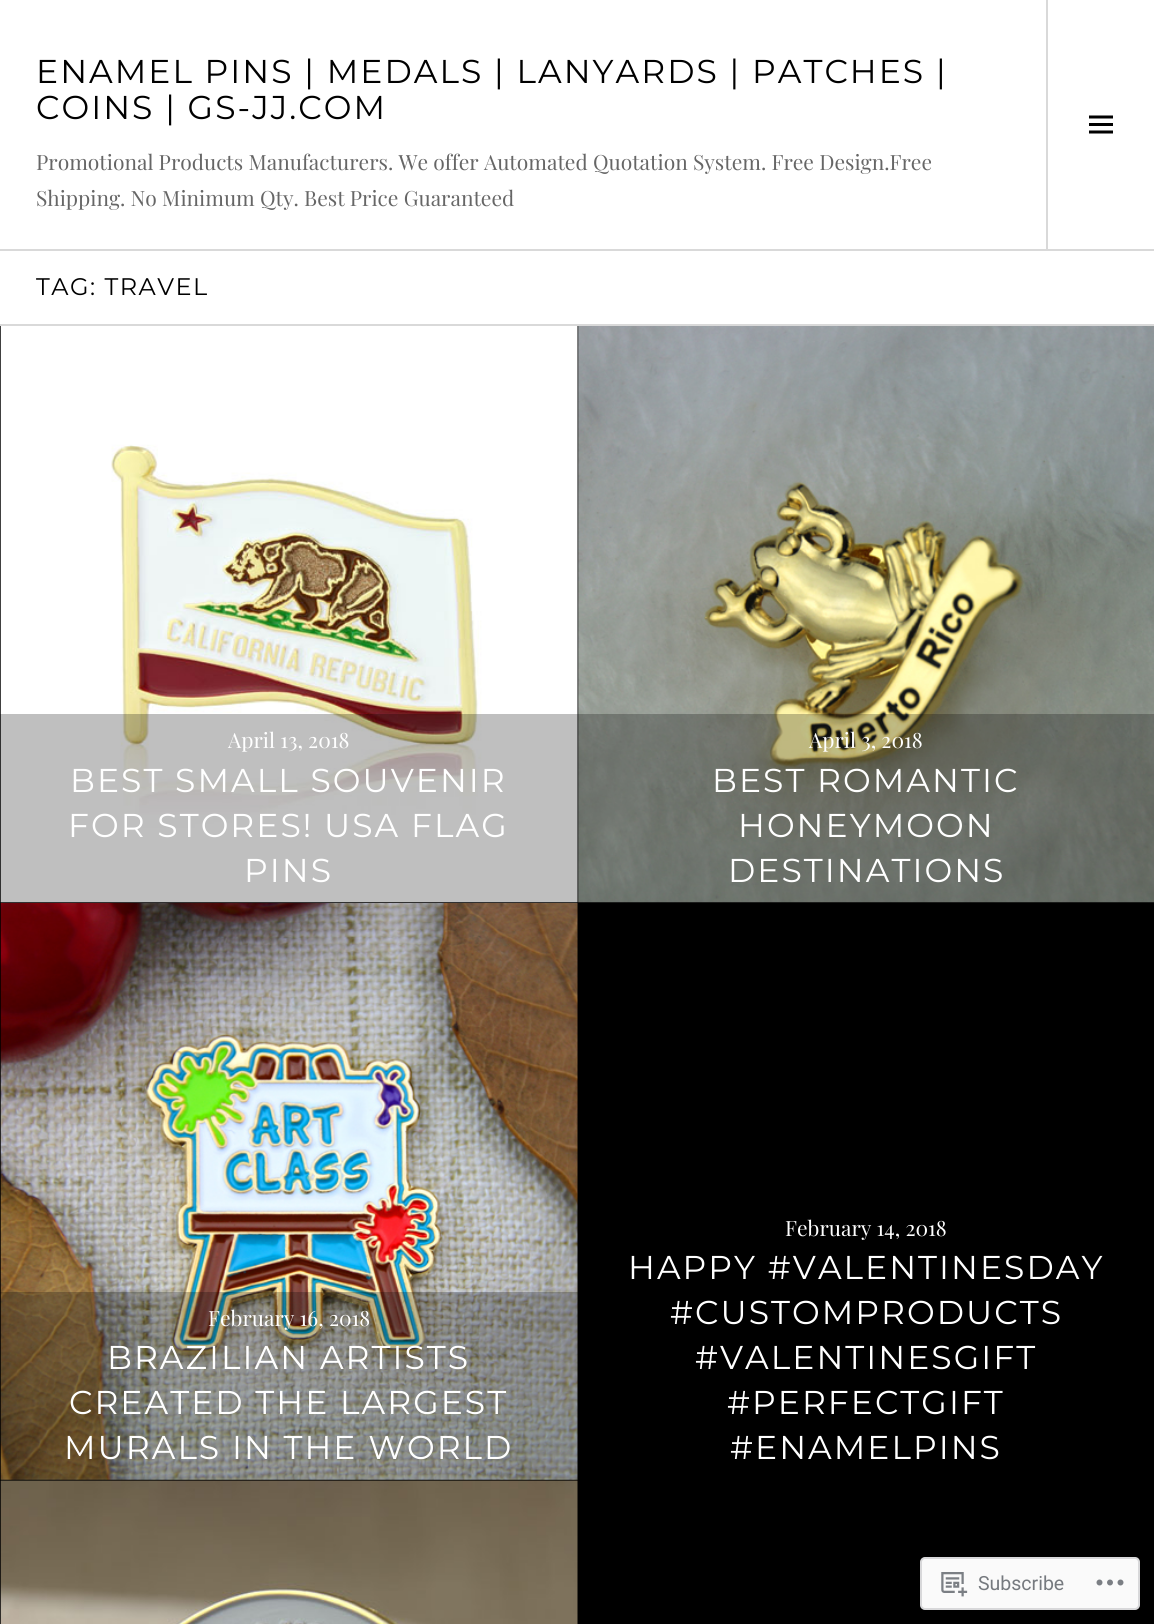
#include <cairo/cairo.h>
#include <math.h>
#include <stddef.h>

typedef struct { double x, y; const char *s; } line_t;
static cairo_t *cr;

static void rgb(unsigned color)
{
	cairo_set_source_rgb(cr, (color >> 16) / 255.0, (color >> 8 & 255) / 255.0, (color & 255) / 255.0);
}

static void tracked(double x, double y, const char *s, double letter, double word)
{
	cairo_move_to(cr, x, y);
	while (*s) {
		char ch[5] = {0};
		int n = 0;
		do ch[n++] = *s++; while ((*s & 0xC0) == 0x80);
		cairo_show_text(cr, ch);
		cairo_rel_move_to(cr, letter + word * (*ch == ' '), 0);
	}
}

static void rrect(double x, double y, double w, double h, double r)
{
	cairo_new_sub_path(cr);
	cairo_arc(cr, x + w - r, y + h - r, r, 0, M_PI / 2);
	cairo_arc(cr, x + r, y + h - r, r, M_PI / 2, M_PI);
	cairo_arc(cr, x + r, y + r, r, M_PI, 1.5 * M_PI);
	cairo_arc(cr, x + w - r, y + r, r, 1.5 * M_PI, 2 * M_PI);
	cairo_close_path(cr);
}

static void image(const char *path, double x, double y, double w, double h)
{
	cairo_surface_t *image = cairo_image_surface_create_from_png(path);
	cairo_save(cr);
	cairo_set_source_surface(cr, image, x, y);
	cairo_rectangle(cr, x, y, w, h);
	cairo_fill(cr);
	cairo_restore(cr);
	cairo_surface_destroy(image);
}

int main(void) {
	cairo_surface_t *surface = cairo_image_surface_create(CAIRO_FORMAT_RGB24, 1154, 1624);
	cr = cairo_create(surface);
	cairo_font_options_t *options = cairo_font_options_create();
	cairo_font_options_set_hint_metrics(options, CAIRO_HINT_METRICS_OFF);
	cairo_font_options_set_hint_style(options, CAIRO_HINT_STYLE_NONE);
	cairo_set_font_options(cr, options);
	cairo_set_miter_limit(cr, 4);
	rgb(0xffffff);
	cairo_paint(cr);
	rgb(0xd9d9d9);
	cairo_rectangle(cr, 0, 249, 1154, 2);
	cairo_fill(cr);
	cairo_rectangle(cr, 1046, 0, 2, 249);
	cairo_fill(cr);
	image("img/1.png", 1089, 115, 24, 19);
	cairo_rectangle(cr, 0, 324, 1154, 2);
	cairo_fill(cr);
	rgb(0x000000);
	cairo_rectangle(cr, 0, 326, 1154, 577);
	cairo_fill(cr);
	image("img/2.png", 0, 326, 578, 577);
	cairo_set_source_rgba(cr, 0, 0, 0, 0.25);
	cairo_rectangle(cr, 0, 714, 578, 189);
	cairo_fill(cr);
	image("img/3.png", 578, 326, 576, 577);
	cairo_rectangle(cr, 578, 714, 576, 189);
	cairo_fill(cr);
	rgb(0x000000);
	cairo_rectangle(cr, 0, 903, 1154, 578);
	cairo_fill(cr);
	image("img/4.png", 0, 903, 578, 577);
	cairo_rectangle(cr, 0, 1481, 1154, 143);
	cairo_fill(cr);
	image("img/5.png", 0, 1480, 578, 144);
	cairo_set_source_rgba(cr, 0, 0, 0, 0.25);
	cairo_rectangle(cr, 0, 1292, 578, 189);
	cairo_fill(cr);
	rgb(0xfafafa);
	rrect(921, 1558, 218, 51, 4);
	cairo_fill_preserve(cr);
	rgb(0xd8d8da);
	cairo_stroke(cr);
	image("img/6.png", 941, 1572, 27, 25);
	image("img/7.png", 1096, 1579, 28, 7);
	cairo_select_font_face(cr, "Montserrat", CAIRO_FONT_SLANT_NORMAL, CAIRO_FONT_WEIGHT_NORMAL);
	cairo_set_font_size(cr, 33);
	rgb(0x000000);
	tracked(36, 83, "ENAMEL PINS | MEDALS | LANYARDS | PATCHES |", 2.05, 0);
	tracked(36, 119, "COINS | GS-JJ.COM", 2.05, 0);
	cairo_select_font_face(cr, "Playfair Display", CAIRO_FONT_SLANT_NORMAL, CAIRO_FONT_WEIGHT_NORMAL);
	cairo_set_font_size(cr, 21);
	rgb(0x666666);
	cairo_move_to(cr, 36, 170);
	cairo_show_text(cr, "Promotional Products Manufacturers. We offer Automated Quotation System. Free Design.Free");
	cairo_move_to(cr, 36, 206);
	cairo_show_text(cr, "Shipping. No Minimum Qty. Best Price Guaranteed");
	cairo_select_font_face(cr, "Montserrat", CAIRO_FONT_SLANT_NORMAL, CAIRO_FONT_WEIGHT_NORMAL);
	cairo_set_font_size(cr, 24);
	rgb(0x000000);
	tracked(36, 295, "TAG: TRAVEL", 1.5, 0);
	cairo_select_font_face(cr, "Playfair Display", CAIRO_FONT_SLANT_NORMAL, CAIRO_FONT_WEIGHT_NORMAL);
	cairo_set_font_size(cr, 21);
	rgb(0xffffff);
	cairo_move_to(cr, 228, 748);
	cairo_show_text(cr, "April 13, 2018");
	cairo_select_font_face(cr, "Montserrat", CAIRO_FONT_SLANT_NORMAL, CAIRO_FONT_WEIGHT_NORMAL);
	cairo_set_font_size(cr, 33);
	{
		static const line_t items[] = {
			{70, 792, "BEST SMALL SOUVENIR"},
			{68, 837, "FOR STORES! USA FLAG"},
			{244, 882, "PINS"},
		};
		for (size_t i = 0; i < sizeof items / sizeof *items; i++) {
			tracked(items[i].x, items[i].y, items[i].s, 2.05, 0);
		}
	}
	cairo_select_font_face(cr, "Playfair Display", CAIRO_FONT_SLANT_NORMAL, CAIRO_FONT_WEIGHT_NORMAL);
	cairo_set_font_size(cr, 21);
	cairo_move_to(cr, 809, 748);
	cairo_show_text(cr, "April 3, 2018");
	cairo_select_font_face(cr, "Montserrat", CAIRO_FONT_SLANT_NORMAL, CAIRO_FONT_WEIGHT_NORMAL);
	cairo_set_font_size(cr, 33);
	{
		static const line_t items[] = {
			{712, 792, "BEST ROMANTIC"},
			{738, 837, "HONEYMOON"},
			{728, 882, "DESTINATIONS"},
		};
		for (size_t i = 0; i < sizeof items / sizeof *items; i++) {
			tracked(items[i].x, items[i].y, items[i].s, 2.05, 0);
		}
	}
	cairo_select_font_face(cr, "Playfair Display", CAIRO_FONT_SLANT_NORMAL, CAIRO_FONT_WEIGHT_NORMAL);
	cairo_set_font_size(cr, 21);
	cairo_move_to(cr, 208, 1326);
	cairo_show_text(cr, "February 16, 2018");
	cairo_select_font_face(cr, "Montserrat", CAIRO_FONT_SLANT_NORMAL, CAIRO_FONT_WEIGHT_NORMAL);
	cairo_set_font_size(cr, 33);
	{
		static const line_t items[] = {
			{107, 1369, "BRAZILIAN ARTISTS"},
			{69, 1414, "CREATED THE LARGEST"},
			{64, 1459, "MURALS IN THE WORLD"},
		};
		for (size_t i = 0; i < sizeof items / sizeof *items; i++) {
			tracked(items[i].x, items[i].y, items[i].s, 2.05, 0);
		}
	}
	cairo_select_font_face(cr, "Playfair Display", CAIRO_FONT_SLANT_NORMAL, CAIRO_FONT_WEIGHT_NORMAL);
	cairo_set_font_size(cr, 21);
	cairo_move_to(cr, 785, 1236);
	cairo_show_text(cr, "February 14, 2018");
	cairo_select_font_face(cr, "Montserrat", CAIRO_FONT_SLANT_NORMAL, CAIRO_FONT_WEIGHT_NORMAL);
	cairo_set_font_size(cr, 33);
	{
		static const line_t items[] = {
			{628, 1279, "HAPPY #VALENTINESDAY"},
			{670, 1324, "#CUSTOMPRODUCTS"},
			{695, 1369, "#VALENTINESGIFT"},
			{727, 1414, "#PERFECTGIFT"},
			{730, 1459, "#ENAMELPINS"},
		};
		for (size_t i = 0; i < sizeof items / sizeof *items; i++) {
			tracked(items[i].x, items[i].y, items[i].s, 2.05, 0);
		}
	}
	cairo_select_font_face(cr, "Roboto", CAIRO_FONT_SLANT_NORMAL, CAIRO_FONT_WEIGHT_NORMAL);
	cairo_set_font_size(cr, 19.5);
	rgb(0x767a7f);
	cairo_move_to(cr, 978, 1590);
	cairo_show_text(cr, "Subscribe");
	cairo_surface_write_to_png(surface, "page.png");
	cairo_font_options_destroy(options);
	cairo_destroy(cr);
	cairo_surface_destroy(surface);
	return 0;
}
